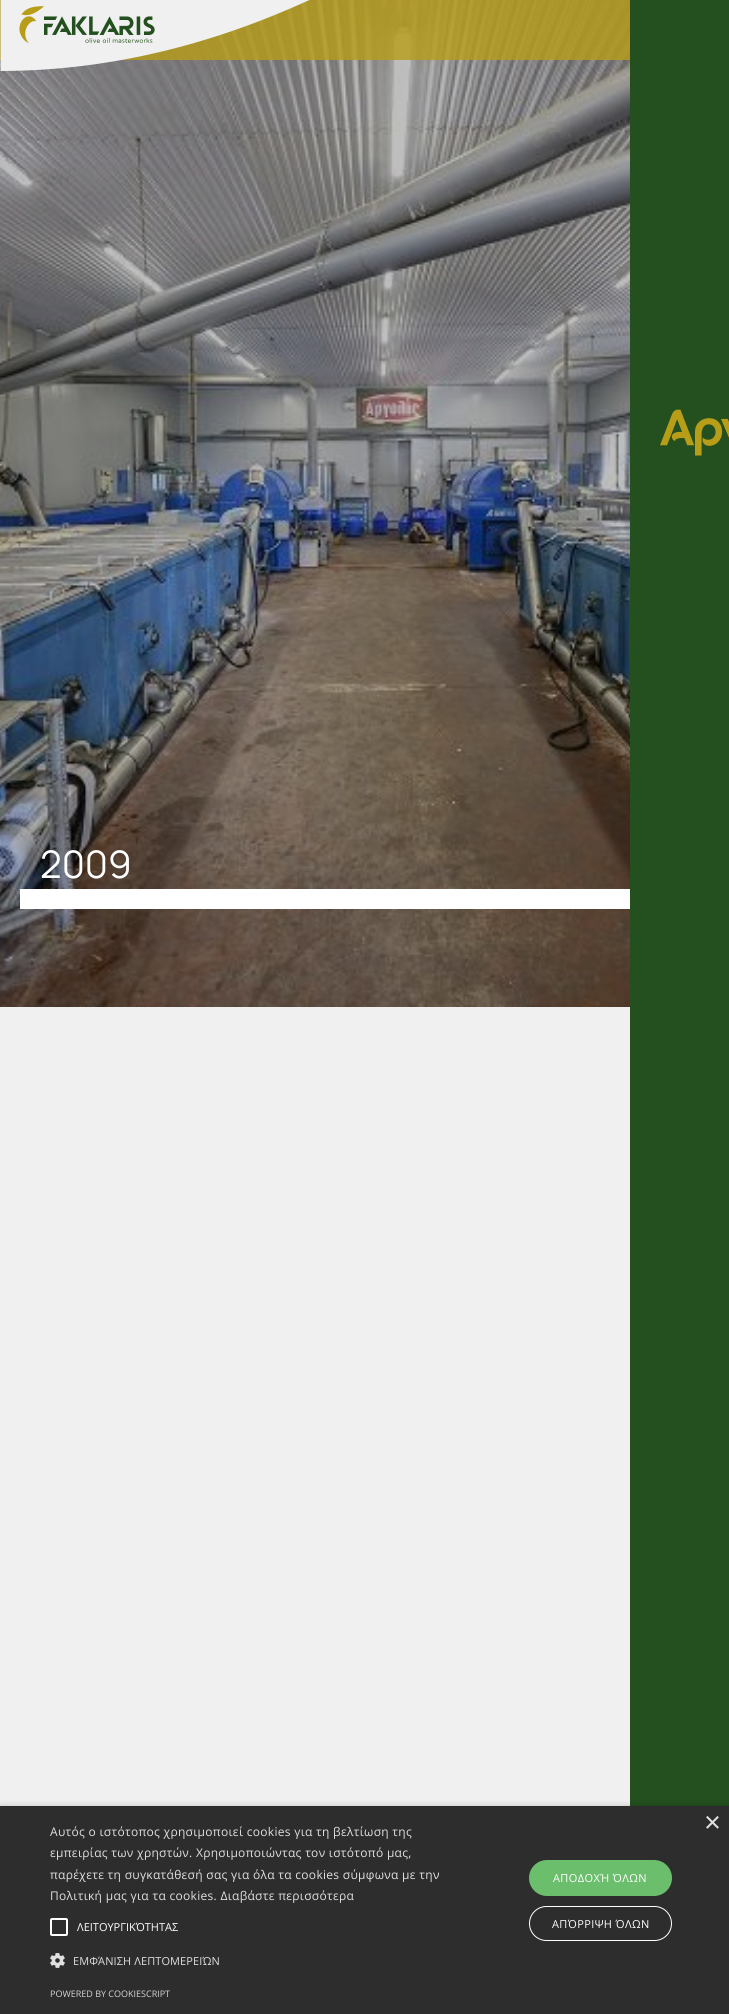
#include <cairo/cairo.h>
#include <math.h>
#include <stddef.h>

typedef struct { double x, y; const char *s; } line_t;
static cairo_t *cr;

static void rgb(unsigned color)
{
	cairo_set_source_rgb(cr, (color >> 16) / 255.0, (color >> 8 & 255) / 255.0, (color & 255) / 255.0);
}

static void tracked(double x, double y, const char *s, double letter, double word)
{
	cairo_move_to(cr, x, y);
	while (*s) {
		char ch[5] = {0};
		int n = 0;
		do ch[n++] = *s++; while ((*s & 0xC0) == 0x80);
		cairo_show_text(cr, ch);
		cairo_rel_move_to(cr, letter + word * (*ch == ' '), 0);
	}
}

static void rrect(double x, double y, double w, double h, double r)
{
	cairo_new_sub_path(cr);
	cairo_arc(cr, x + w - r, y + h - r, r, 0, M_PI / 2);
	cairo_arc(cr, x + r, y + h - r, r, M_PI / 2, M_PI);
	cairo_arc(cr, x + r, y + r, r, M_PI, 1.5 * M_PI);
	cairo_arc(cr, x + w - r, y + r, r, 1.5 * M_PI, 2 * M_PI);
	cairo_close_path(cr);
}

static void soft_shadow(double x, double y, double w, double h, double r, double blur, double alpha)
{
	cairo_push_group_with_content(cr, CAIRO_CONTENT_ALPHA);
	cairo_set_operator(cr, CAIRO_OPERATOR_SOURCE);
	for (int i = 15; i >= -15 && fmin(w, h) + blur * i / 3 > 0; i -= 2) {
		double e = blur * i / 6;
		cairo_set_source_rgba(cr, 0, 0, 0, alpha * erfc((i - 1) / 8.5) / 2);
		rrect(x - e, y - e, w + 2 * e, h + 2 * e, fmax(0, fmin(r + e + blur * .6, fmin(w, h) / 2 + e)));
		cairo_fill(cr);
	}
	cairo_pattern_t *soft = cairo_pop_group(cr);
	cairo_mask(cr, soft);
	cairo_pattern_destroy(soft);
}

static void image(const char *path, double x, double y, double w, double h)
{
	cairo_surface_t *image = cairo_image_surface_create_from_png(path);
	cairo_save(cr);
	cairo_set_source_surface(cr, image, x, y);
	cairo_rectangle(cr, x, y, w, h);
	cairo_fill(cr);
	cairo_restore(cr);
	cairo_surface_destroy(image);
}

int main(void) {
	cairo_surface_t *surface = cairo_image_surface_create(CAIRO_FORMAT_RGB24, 729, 2014);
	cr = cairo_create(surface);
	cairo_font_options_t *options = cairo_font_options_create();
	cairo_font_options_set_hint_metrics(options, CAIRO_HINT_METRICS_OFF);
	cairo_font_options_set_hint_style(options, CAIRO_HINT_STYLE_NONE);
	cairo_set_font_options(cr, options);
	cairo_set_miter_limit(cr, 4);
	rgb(0xf0f0f0);
	cairo_paint(cr);
	image("img/3.png", 0, 0, 630, 1007);
	cairo_set_source_rgba(cr, 0.722, 0.616, 0.094, 0.8);
	cairo_rectangle(cr, 0, 0, 630, 60);
	cairo_fill(cr);
	image("img/1.png", 0, 0, 310, 71);
	rgb(0x23501e);
	cairo_rectangle(cr, 630, 0, 99, 1806);
	cairo_fill(cr);
	image("img/2.png", 660, 409, 69, 47);
	rgb(0xffffff);
	cairo_rectangle(cr, 20, 889, 610, 20);
	cairo_fill(cr);
	rgb(0x000000);
	soft_shadow(1, 1808, 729, 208, 0, 4, 0.35);
	rgb(0x2d2d2d);
	cairo_rectangle(cr, 0, 1806, 729, 208);
	cairo_fill(cr);
	rrect(51, 1919, 16, 16, 1);
	rgb(0xffffff);
	cairo_stroke(cr);
	image("img/4.png", 50, 1953, 15, 15);
	rgb(0x6bbe6b);
	rrect(529, 1860, 143, 36, 18);
	cairo_fill(cr);
	rrect(529.5, 1906.5, 142, 34, 17);
	rgb(0xffffff);
	cairo_set_line_width(cr, 1);
	cairo_stroke(cr);
	cairo_select_font_face(cr, "Manrope", CAIRO_FONT_SLANT_NORMAL, CAIRO_FONT_WEIGHT_NORMAL);
	cairo_set_font_size(cr, 38);
	cairo_move_to(cr, 40, 878);
	cairo_show_text(cr, "2009");
	cairo_select_font_face(cr, "Liberation Sans", CAIRO_FONT_SLANT_NORMAL, CAIRO_FONT_WEIGHT_NORMAL);
	cairo_set_font_size(cr, 29);
	rgb(0xe0e0e0);
	cairo_move_to(cr, 704, 1832);
	cairo_show_text(cr, "×");
	cairo_select_font_face(cr, "Open Sans", CAIRO_FONT_SLANT_NORMAL, CAIRO_FONT_WEIGHT_NORMAL);
	cairo_set_font_size(cr, 12);
	{
		static const line_t items[] = {
			{50, 1836, "Αυτός ο ιστότοπος χρησιμοποιεί cookies για τη βελτίωση της"},
			{50, 1857, "εμπειρίας των χρηστών. Χρησιμοποιώντας τον ιστότοπό μας,"},
			{50, 1879, "παρέχετε τη συγκατάθεσή σας για όλα τα cookies σύμφωνα με την"},
			{50, 1900, "Πολιτική μας για τα cookies. Διαβάστε περισσότερα"},
		};
		for (size_t i = 0; i < sizeof items / sizeof *items; i++) {
			tracked(items[i].x, items[i].y, items[i].s, 0.3, 0);
		}
	}
	cairo_set_font_size(cr, 11);
	rgb(0xffffff);
	cairo_move_to(cr, 77, 1931);
	cairo_show_text(cr, "ΛΕΙΤΟΥΡΓΙΚΌΤΗΤΑΣ");
	rgb(0xe0e0e0);
	tracked(73, 1965, "ΕΜΦΆΝΙΣΗ ΛΕΠΤΟΜΕΡΕΙΏΝ", 0.1, 0);
	rgb(0xffffff);
	tracked(553, 1882, "ΑΠΟΔΟΧΉ ΌΛΩΝ", 0.4, 0);
	tracked(552, 1928, "ΑΠΌΡΡΙΨΗ ΌΛΩΝ", 0.4, 0);
	cairo_set_font_size(cr, 9);
	rgb(0xd5d5d5);
	cairo_move_to(cr, 50, 1997);
	cairo_show_text(cr, "POWERED BY COOKIESCRIPT");
	cairo_surface_write_to_png(surface, "page.png");
	cairo_font_options_destroy(options);
	cairo_destroy(cr);
	cairo_surface_destroy(surface);
	return 0;
}
